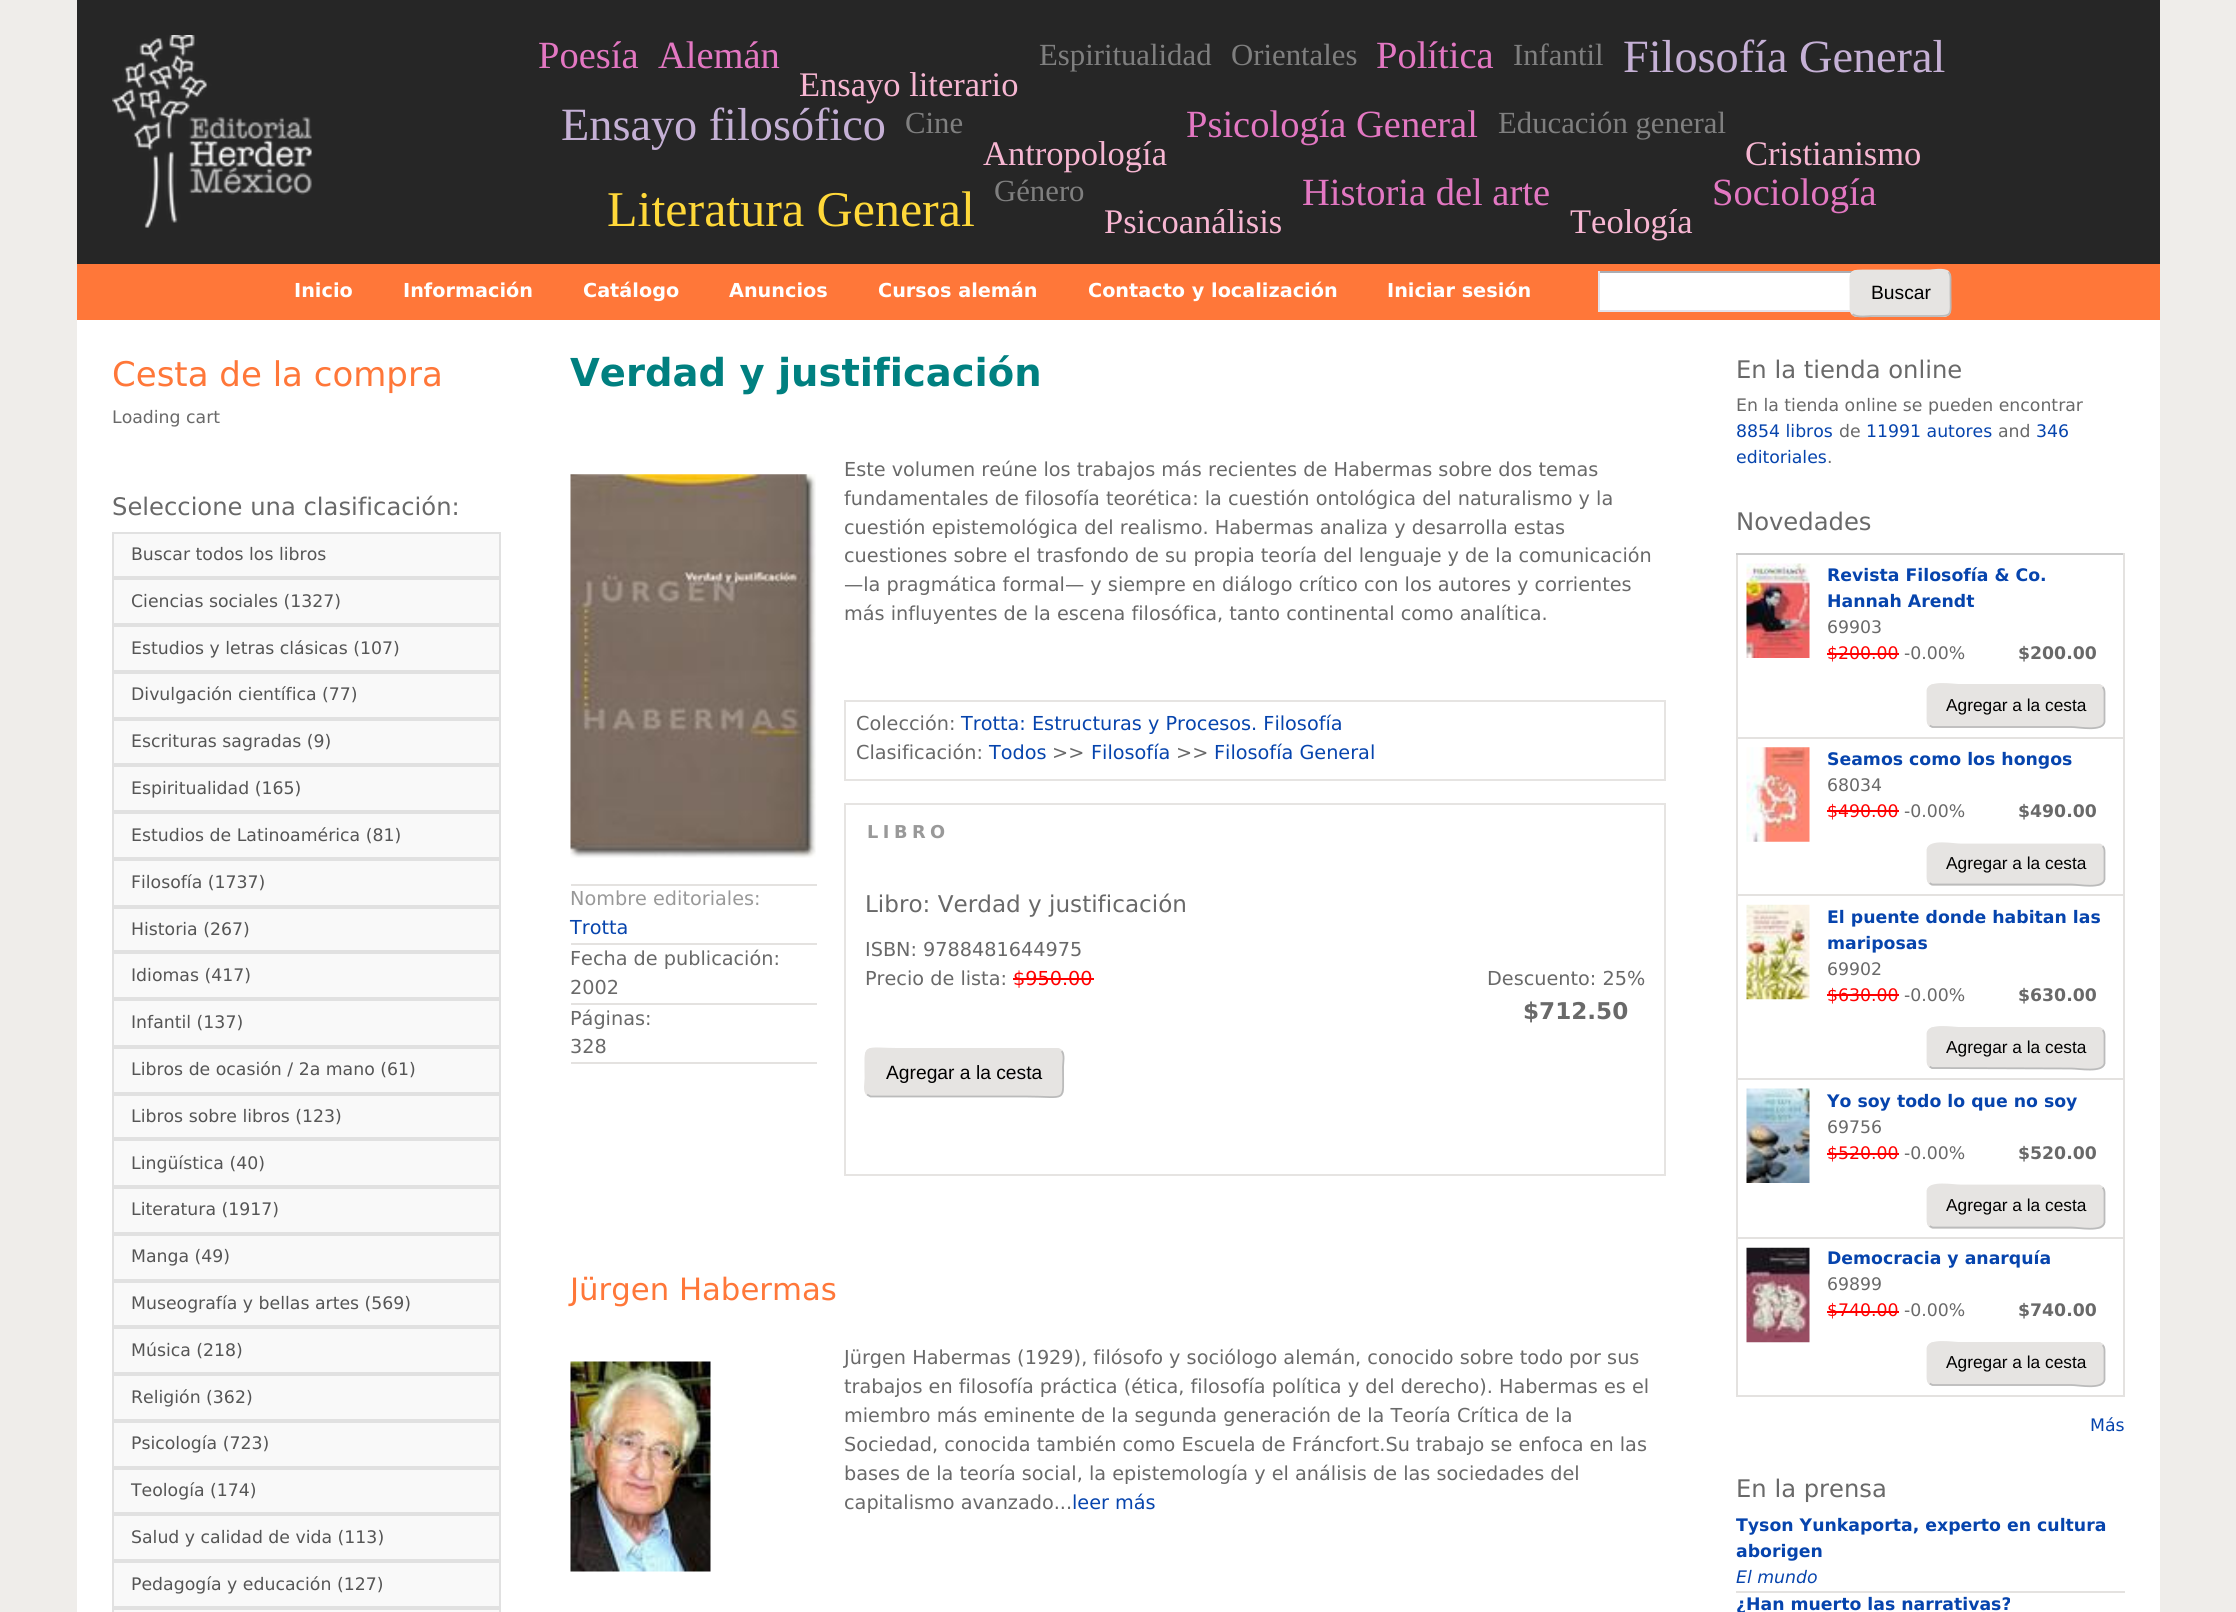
#include <cairo/cairo.h>
#include <math.h>
#include <stddef.h>

typedef struct { double x, y; const char *s; } line_t;
typedef struct { double x, y, w, h; unsigned color; } box_t;
static cairo_t *cr;

static void rgb(unsigned color)
{
	cairo_set_source_rgb(cr, (color >> 16) / 255.0, (color >> 8 & 255) / 255.0, (color & 255) / 255.0);
}

static void tracked(double x, double y, const char *s, double letter, double word)
{
	cairo_move_to(cr, x, y);
	while (*s) {
		char ch[5] = {0};
		int n = 0;
		do ch[n++] = *s++; while ((*s & 0xC0) == 0x80);
		cairo_show_text(cr, ch);
		cairo_rel_move_to(cr, letter + word * (*ch == ' '), 0);
	}
}

static void rrect(double x, double y, double w, double h, double r)
{
	cairo_new_sub_path(cr);
	cairo_arc(cr, x + w - r, y + h - r, r, 0, M_PI / 2);
	cairo_arc(cr, x + r, y + h - r, r, M_PI / 2, M_PI);
	cairo_arc(cr, x + r, y + r, r, M_PI, 1.5 * M_PI);
	cairo_arc(cr, x + w - r, y + r, r, 1.5 * M_PI, 2 * M_PI);
	cairo_close_path(cr);
}

static void image(const char *path, double x, double y, double w, double h)
{
	cairo_surface_t *image = cairo_image_surface_create_from_png(path);
	cairo_save(cr);
	cairo_set_source_surface(cr, image, x, y);
	cairo_rectangle(cr, x, y, w, h);
	cairo_fill(cr);
	cairo_restore(cr);
	cairo_surface_destroy(image);
}

int main(void) {
	cairo_surface_t *surface = cairo_image_surface_create(CAIRO_FORMAT_RGB24, 2236, 1612);
	cr = cairo_create(surface);
	cairo_font_options_t *options = cairo_font_options_create();
	cairo_font_options_set_hint_metrics(options, CAIRO_HINT_METRICS_OFF);
	cairo_font_options_set_hint_style(options, CAIRO_HINT_STYLE_NONE);
	cairo_set_font_options(cr, options);
	cairo_set_miter_limit(cr, 4);
	rgb(0xefedea);
	cairo_paint(cr);
	rgb(0x262626);
	cairo_rectangle(cr, 77, 0, 2083, 264);
	cairo_fill(cr);
	image("img/1.png", 112, 35, 200, 193);
	{
		static const box_t items[] = {
			{77, 264, 2083, 56, 0xff7739},
			{1600, 273, 251, 37, 0xffffff},
			{1598, 271, 255, 2, 0xabadb3},
			{1598, 310, 253, 2, 0xe2e3ea},
			{1598, 271, 2, 41, 0xe2e3ea},
		};
		for (size_t i = 0; i < sizeof items / sizeof *items; i++) {
			rgb(items[i].color);
			cairo_rectangle(cr, items[i].x, items[i].y, items[i].w, items[i].h);
			cairo_fill(cr);
		}
	}
	rgb(0xe6e4e2);
	rrect(1850, 270, 101, 47, 7);
	cairo_fill(cr);
	cairo_new_path(cr);
	cairo_move_to(cr, 1948.5, 272);
	cairo_curve_to(cr, 1951, 274.5, 1950.5, 279, 1950.5, 282);
	cairo_line_to(cr, 1950.5, 293);
	cairo_curve_to(cr, 1950.5, 317.5, 1954, 316, 1929.5, 316);
	cairo_line_to(cr, 1871.5, 316);
	cairo_curve_to(cr, 1869.5, 316, 1856.5, 318, 1852.5, 314);
	rgb(0xbbbbbb);
	cairo_set_line_width(cr, 1.8);
	cairo_stroke(cr);
	cairo_new_path(cr);
	cairo_move_to(cr, 1852.5, 314);
	cairo_curve_to(cr, 1850, 311.5, 1850.5, 307.5, 1850.5, 304);
	cairo_line_to(cr, 1850.5, 293);
	cairo_curve_to(cr, 1850.5, 269, 1847, 270.5, 1871.5, 270.5);
	cairo_line_to(cr, 1929.5, 270.5);
	cairo_curve_to(cr, 1931.5, 270.5, 1944.5, 268, 1948.5, 272);
	rgb(0xe6e4e2);
	cairo_stroke(cr);
	rgb(0xffffff);
	cairo_rectangle(cr, 77, 320, 2083, 1292);
	cairo_fill(cr);
	rgb(0xf9f9f9);
	cairo_rectangle(cr, 113, 533, 387, 44);
	cairo_fill_preserve(cr);
	rgb(0xe1e1e1);
	cairo_set_line_width(cr, 2);
	cairo_stroke(cr);
	rgb(0xf9f9f9);
	cairo_rectangle(cr, 113, 579, 387, 45);
	cairo_fill_preserve(cr);
	rgb(0xe1e1e1);
	cairo_stroke(cr);
	rgb(0xf9f9f9);
	cairo_rectangle(cr, 113, 626, 387, 45);
	cairo_fill_preserve(cr);
	rgb(0xe1e1e1);
	cairo_stroke(cr);
	rgb(0xf9f9f9);
	cairo_rectangle(cr, 113, 673, 387, 45);
	cairo_fill_preserve(cr);
	rgb(0xe1e1e1);
	cairo_stroke(cr);
	rgb(0xf9f9f9);
	cairo_rectangle(cr, 113, 720, 387, 44);
	cairo_fill_preserve(cr);
	rgb(0xe1e1e1);
	cairo_stroke(cr);
	rgb(0xf9f9f9);
	cairo_rectangle(cr, 113, 766, 387, 45);
	cairo_fill_preserve(cr);
	rgb(0xe1e1e1);
	cairo_stroke(cr);
	rgb(0xf9f9f9);
	cairo_rectangle(cr, 113, 813, 387, 45);
	cairo_fill_preserve(cr);
	rgb(0xe1e1e1);
	cairo_stroke(cr);
	rgb(0xf9f9f9);
	cairo_rectangle(cr, 113, 860, 387, 46);
	cairo_fill_preserve(cr);
	rgb(0xe1e1e1);
	cairo_stroke(cr);
	rgb(0xf9f9f9);
	cairo_rectangle(cr, 113, 908, 387, 43);
	cairo_fill_preserve(cr);
	rgb(0xe1e1e1);
	cairo_stroke(cr);
	rgb(0xf9f9f9);
	cairo_rectangle(cr, 113, 953, 387, 45);
	cairo_fill_preserve(cr);
	rgb(0xe1e1e1);
	cairo_stroke(cr);
	rgb(0xf9f9f9);
	cairo_rectangle(cr, 113, 1000, 387, 46);
	cairo_fill_preserve(cr);
	rgb(0xe1e1e1);
	cairo_stroke(cr);
	rgb(0xf9f9f9);
	cairo_rectangle(cr, 113, 1048, 387, 45);
	cairo_fill_preserve(cr);
	rgb(0xe1e1e1);
	cairo_stroke(cr);
	rgb(0xf9f9f9);
	cairo_rectangle(cr, 113, 1095, 387, 43);
	cairo_fill_preserve(cr);
	rgb(0xe1e1e1);
	cairo_stroke(cr);
	rgb(0xf9f9f9);
	cairo_rectangle(cr, 113, 1140, 387, 46);
	cairo_fill_preserve(cr);
	rgb(0xe1e1e1);
	cairo_stroke(cr);
	rgb(0xf9f9f9);
	cairo_rectangle(cr, 113, 1188, 387, 45);
	cairo_fill_preserve(cr);
	rgb(0xe1e1e1);
	cairo_stroke(cr);
	rgb(0xf9f9f9);
	cairo_rectangle(cr, 113, 1235, 387, 45);
	cairo_fill_preserve(cr);
	rgb(0xe1e1e1);
	cairo_stroke(cr);
	rgb(0xf9f9f9);
	cairo_rectangle(cr, 113, 1282, 387, 44);
	cairo_fill_preserve(cr);
	rgb(0xe1e1e1);
	cairo_stroke(cr);
	rgb(0xf9f9f9);
	cairo_rectangle(cr, 113, 1328, 387, 45);
	cairo_fill_preserve(cr);
	rgb(0xe1e1e1);
	cairo_stroke(cr);
	rgb(0xf9f9f9);
	cairo_rectangle(cr, 113, 1375, 387, 45);
	cairo_fill_preserve(cr);
	rgb(0xe1e1e1);
	cairo_stroke(cr);
	rgb(0xf9f9f9);
	cairo_rectangle(cr, 113, 1422, 387, 45);
	cairo_fill_preserve(cr);
	rgb(0xe1e1e1);
	cairo_stroke(cr);
	rgb(0xf9f9f9);
	cairo_rectangle(cr, 113, 1469, 387, 44);
	cairo_fill_preserve(cr);
	rgb(0xe1e1e1);
	cairo_stroke(cr);
	rgb(0xf9f9f9);
	cairo_rectangle(cr, 113, 1515, 387, 45);
	cairo_fill_preserve(cr);
	rgb(0xe1e1e1);
	cairo_stroke(cr);
	rgb(0xf9f9f9);
	cairo_rectangle(cr, 113, 1562, 387, 45);
	cairo_fill_preserve(cr);
	rgb(0xe1e1e1);
	cairo_stroke(cr);
	rgb(0xf9f9f9);
	cairo_rectangle(cr, 113, 1609, 387, 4);
	cairo_fill_preserve(cr);
	rgb(0xe1e1e1);
	cairo_stroke(cr);
	rgb(0xe4e2e0);
	cairo_rectangle(cr, 571, 884, 246, 2);
	cairo_fill(cr);
	image("img/2.png", 570, 474, 246, 384);
	{
		static const box_t items[] = {
			{571, 943, 246, 2, 0xe4e2e0},
			{571, 1003, 246, 2, 0xe4e2e0},
			{571, 1062, 246, 2, 0xe4e2e0},
		};
		for (size_t i = 0; i < sizeof items / sizeof *items; i++) {
			rgb(items[i].color);
			cairo_rectangle(cr, items[i].x, items[i].y, items[i].w, items[i].h);
			cairo_fill(cr);
		}
	}
	cairo_rectangle(cr, 845, 701, 820, 79);
	rgb(0xe6e4e2);
	cairo_stroke(cr);
	cairo_rectangle(cr, 845, 804, 820, 371);
	cairo_stroke(cr);
	rgb(0xff0000);
	cairo_rectangle(cr, 1013, 978, 81, 2);
	cairo_fill(cr);
	rgb(0xe6e4e2);
	rrect(865, 1048, 199, 49, 7);
	cairo_fill(cr);
	cairo_new_path(cr);
	cairo_move_to(cr, 1061.5, 1051);
	cairo_curve_to(cr, 1065, 1054.5, 1063, 1063, 1063, 1067);
	cairo_curve_to(cr, 1063, 1104, 1068, 1096.5, 1026, 1096.5);
	cairo_line_to(cr, 870.5, 1096.5);
	cairo_line_to(cr, 867, 1094.5);
	rgb(0xbbbbbb);
	cairo_set_line_width(cr, 1.8);
	cairo_stroke(cr);
	cairo_new_path(cr);
	cairo_move_to(cr, 867, 1094.5);
	cairo_curve_to(cr, 863.5, 1091, 865.5, 1082.5, 865.5, 1078.5);
	cairo_curve_to(cr, 865.5, 1041.5, 860.5, 1049, 902.5, 1049);
	cairo_line_to(cr, 1058, 1049);
	cairo_line_to(cr, 1061.5, 1051);
	rgb(0xe6e4e2);
	cairo_stroke(cr);
	image("img/3.png", 570, 1361, 141, 211);
	{
		static const box_t items[] = {
			{2123, 739, 2, 658, 0xe4e2e0},
			{1736, 553, 2, 844, 0xe4e2e0},
			{1736, 553, 389, 2, 0xcccccc},
		};
		for (size_t i = 0; i < sizeof items / sizeof *items; i++) {
			rgb(items[i].color);
			cairo_rectangle(cr, items[i].x, items[i].y, items[i].w, items[i].h);
			cairo_fill(cr);
		}
	}
	image("img/4.png", 1746, 563, 64, 95);
	{
		static const box_t items[] = {
			{2123, 553, 2, 186, 0xe4e2e0},
			{1736, 737, 389, 2, 0xe4e2e0},
			{1827, 653, 72, 2, 0xff0000},
		};
		for (size_t i = 0; i < sizeof items / sizeof *items; i++) {
			rgb(items[i].color);
			cairo_rectangle(cr, items[i].x, items[i].y, items[i].w, items[i].h);
			cairo_fill(cr);
		}
	}
	rgb(0xe6e4e2);
	rrect(1927, 684, 178, 44, 7);
	cairo_fill(cr);
	cairo_new_path(cr);
	cairo_move_to(cr, 2102.5, 687);
	cairo_curve_to(cr, 2105, 689.5, 2104.5, 693, 2104.5, 696);
	cairo_line_to(cr, 2104.5, 722);
	cairo_curve_to(cr, 2102.5, 732, 2079, 727, 2071, 727);
	cairo_line_to(cr, 1932.5, 727);
	cairo_line_to(cr, 1929.5, 725.5);
	rgb(0xbbbbbb);
	cairo_stroke(cr);
	cairo_new_path(cr);
	cairo_move_to(cr, 1929.5, 725.5);
	cairo_curve_to(cr, 1927, 723, 1927.5, 719, 1927.5, 716);
	cairo_line_to(cr, 1927.5, 690);
	cairo_curve_to(cr, 1929.5, 680.5, 1953, 685, 1961, 685);
	cairo_line_to(cr, 2099.5, 685);
	cairo_line_to(cr, 2102.5, 687);
	rgb(0xe6e4e2);
	cairo_stroke(cr);
	image("img/5.png", 1746, 747, 64, 95);
	rgb(0xe4e2e0);
	cairo_rectangle(cr, 1736, 894, 389, 2);
	cairo_fill(cr);
	rgb(0xff0000);
	cairo_rectangle(cr, 1827, 810, 72, 2);
	cairo_fill(cr);
	rgb(0xe6e4e2);
	rrect(1927, 844, 178, 42, 7);
	cairo_fill(cr);
	cairo_new_path(cr);
	cairo_move_to(cr, 2102.5, 846);
	cairo_curve_to(cr, 2105, 848.5, 2104.5, 852, 2104.5, 855);
	cairo_line_to(cr, 2104.5, 879.5);
	cairo_curve_to(cr, 2102.5, 889.5, 2079, 884.5, 2071, 884.5);
	cairo_line_to(cr, 1932, 884.5);
	cairo_line_to(cr, 1929.5, 883);
	rgb(0xbbbbbb);
	cairo_stroke(cr);
	cairo_new_path(cr);
	cairo_move_to(cr, 1929.5, 883);
	cairo_curve_to(cr, 1927, 880.5, 1927.5, 877, 1927.5, 874);
	cairo_line_to(cr, 1927.5, 849.5);
	cairo_curve_to(cr, 1929.5, 839.5, 1953, 844.5, 1961, 844.5);
	cairo_line_to(cr, 2100, 844.5);
	cairo_line_to(cr, 2102.5, 846);
	rgb(0xe6e4e2);
	cairo_stroke(cr);
	image("img/6.png", 1746, 904, 64, 96);
	rgb(0xe4e2e0);
	cairo_rectangle(cr, 1736, 1078, 389, 2);
	cairo_fill(cr);
	rgb(0xff0000);
	cairo_rectangle(cr, 1827, 994, 72, 2);
	cairo_fill(cr);
	rgb(0xe6e4e2);
	rrect(1927, 1027, 178, 42, 7);
	cairo_fill(cr);
	cairo_new_path(cr);
	cairo_move_to(cr, 2102.5, 1030);
	cairo_curve_to(cr, 2105, 1032.5, 2104.5, 1036, 2104.5, 1039);
	cairo_line_to(cr, 2104.5, 1063.5);
	cairo_curve_to(cr, 2102.5, 1073, 2079, 1068.5, 2071, 1068.5);
	cairo_line_to(cr, 1932, 1068);
	cairo_line_to(cr, 1929.5, 1066.5);
	rgb(0xbbbbbb);
	cairo_stroke(cr);
	cairo_new_path(cr);
	cairo_move_to(cr, 1929.5, 1066.5);
	cairo_curve_to(cr, 1927, 1064, 1927.5, 1060.5, 1927.5, 1057.5);
	cairo_line_to(cr, 1927.5, 1033);
	cairo_curve_to(cr, 1929.5, 1023.5, 1953, 1028, 1961, 1028);
	cairo_line_to(cr, 2100, 1028.5);
	cairo_line_to(cr, 2102.5, 1030);
	rgb(0xe6e4e2);
	cairo_stroke(cr);
	image("img/7.png", 1746, 1088, 64, 95);
	rgb(0xe4e2e0);
	cairo_rectangle(cr, 1736, 1237, 389, 2);
	cairo_fill(cr);
	rgb(0xff0000);
	cairo_rectangle(cr, 1827, 1153, 72, 2);
	cairo_fill(cr);
	rgb(0xe6e4e2);
	rrect(1927, 1185, 178, 44, 7);
	cairo_fill(cr);
	cairo_new_path(cr);
	cairo_move_to(cr, 2102.5, 1187.5);
	cairo_curve_to(cr, 2105, 1190, 2104.5, 1193.5, 2104.5, 1196.5);
	cairo_line_to(cr, 2104.5, 1222.5);
	cairo_curve_to(cr, 2102.5, 1232.5, 2079, 1227.5, 2071, 1227.5);
	cairo_line_to(cr, 1932.5, 1227.5);
	cairo_line_to(cr, 1929.5, 1226);
	rgb(0xbbbbbb);
	cairo_stroke(cr);
	cairo_new_path(cr);
	cairo_move_to(cr, 1929.5, 1226);
	cairo_curve_to(cr, 1927, 1223.5, 1927.5, 1219.5, 1927.5, 1216.5);
	cairo_line_to(cr, 1927.5, 1190.5);
	cairo_curve_to(cr, 1929.5, 1181, 1953, 1185.5, 1961, 1185.5);
	cairo_line_to(cr, 2099.5, 1185.5);
	cairo_line_to(cr, 2102.5, 1187.5);
	rgb(0xe6e4e2);
	cairo_stroke(cr);
	image("img/8.png", 1746, 1247, 64, 96);
	rgb(0xe4e2e0);
	cairo_rectangle(cr, 1736, 1395, 389, 2);
	cairo_fill(cr);
	rgb(0xff0000);
	cairo_rectangle(cr, 1827, 1311, 72, 2);
	cairo_fill(cr);
	rgb(0xe6e4e2);
	rrect(1927, 1342, 178, 44, 7);
	cairo_fill(cr);
	cairo_new_path(cr);
	cairo_move_to(cr, 2102.5, 1345);
	cairo_curve_to(cr, 2105, 1347.5, 2104.5, 1351, 2104.5, 1354);
	cairo_line_to(cr, 2104.5, 1380);
	cairo_curve_to(cr, 2102.5, 1390, 2079, 1385, 2071, 1385);
	cairo_line_to(cr, 1932.5, 1385);
	cairo_line_to(cr, 1929.5, 1383.5);
	rgb(0xbbbbbb);
	cairo_stroke(cr);
	cairo_new_path(cr);
	cairo_move_to(cr, 1929.5, 1383.5);
	cairo_curve_to(cr, 1927, 1381, 1927.5, 1377, 1927.5, 1374);
	cairo_line_to(cr, 1927.5, 1348);
	cairo_curve_to(cr, 1929.5, 1338.5, 1953, 1343, 1961, 1343);
	cairo_line_to(cr, 2099.5, 1343);
	cairo_line_to(cr, 2102.5, 1345);
	rgb(0xe6e4e2);
	cairo_stroke(cr);
	rgb(0xe4e2e0);
	cairo_rectangle(cr, 1736, 1591, 389, 2);
	cairo_fill(cr);
	cairo_select_font_face(cr, "Liberation Serif", CAIRO_FONT_SLANT_NORMAL, CAIRO_FONT_WEIGHT_NORMAL);
	cairo_set_font_size(cr, 38.5);
	rgb(0xe377c2);
	cairo_move_to(cr, 538, 68);
	cairo_show_text(cr, "Poesía");
	cairo_move_to(cr, 658, 68);
	cairo_show_text(cr, "Alemán");
	cairo_set_font_size(cr, 30.75);
	rgb(0x7f7f7f);
	cairo_move_to(cr, 1039, 65);
	cairo_show_text(cr, "Espiritualidad");
	cairo_move_to(cr, 1231, 65);
	cairo_show_text(cr, "Orientales");
	cairo_set_font_size(cr, 38.5);
	rgb(0xe377c2);
	cairo_move_to(cr, 1376, 68);
	cairo_show_text(cr, "Política");
	cairo_set_font_size(cr, 30.75);
	rgb(0x7f7f7f);
	cairo_move_to(cr, 1513, 65);
	cairo_show_text(cr, "Infantil");
	cairo_set_font_size(cr, 46.25);
	rgb(0xc5b0d5);
	cairo_move_to(cr, 1623, 72);
	cairo_show_text(cr, "Filosofía General");
	cairo_set_font_size(cr, 34.5);
	rgb(0xf7b6d2);
	cairo_move_to(cr, 799, 96);
	cairo_show_text(cr, "Ensayo literario");
	cairo_set_font_size(cr, 46.25);
	rgb(0xc5b0d5);
	cairo_move_to(cr, 561, 140);
	cairo_show_text(cr, "Ensayo filosófico");
	cairo_set_font_size(cr, 30.75);
	rgb(0x7f7f7f);
	cairo_move_to(cr, 905, 133);
	cairo_show_text(cr, "Cine");
	cairo_set_font_size(cr, 38.5);
	rgb(0xe377c2);
	cairo_move_to(cr, 1186, 137);
	cairo_show_text(cr, "Psicología General");
	cairo_set_font_size(cr, 30.75);
	rgb(0x7f7f7f);
	cairo_move_to(cr, 1498, 133);
	cairo_show_text(cr, "Educación general");
	cairo_set_font_size(cr, 34.5);
	rgb(0xf7b6d2);
	cairo_move_to(cr, 983, 165);
	cairo_show_text(cr, "Antropología");
	cairo_move_to(cr, 1745, 165);
	cairo_show_text(cr, "Cristianismo");
	cairo_set_font_size(cr, 50);
	rgb(0xffd839);
	cairo_move_to(cr, 607, 226);
	cairo_show_text(cr, "Literatura General");
	cairo_set_font_size(cr, 30.75);
	rgb(0x7f7f7f);
	cairo_move_to(cr, 994, 201);
	cairo_show_text(cr, "Género");
	cairo_set_font_size(cr, 34.5);
	rgb(0xf7b6d2);
	cairo_move_to(cr, 1104, 233);
	cairo_show_text(cr, "Psicoanálisis");
	cairo_set_font_size(cr, 38.5);
	rgb(0xe377c2);
	cairo_move_to(cr, 1302, 205);
	cairo_show_text(cr, "Historia del arte");
	cairo_set_font_size(cr, 34.5);
	rgb(0xf7b6d2);
	cairo_move_to(cr, 1570, 233);
	cairo_show_text(cr, "Teología");
	cairo_set_font_size(cr, 38.5);
	rgb(0xe377c2);
	cairo_move_to(cr, 1712, 205);
	cairo_show_text(cr, "Sociología");
	cairo_select_font_face(cr, "DejaVu Sans", CAIRO_FONT_SLANT_NORMAL, CAIRO_FONT_WEIGHT_BOLD);
	cairo_set_font_size(cr, 19.25);
	rgb(0xffffff);
	{
		static const line_t items[] = {
			{294, 297, "Inicio"},
			{403, 297, "Información"},
			{583, 297, "Catálogo"},
			{729, 297, "Anuncios"},
			{878, 297, "Cursos alemán"},
			{1088, 297, "Contacto y localización"},
			{1387, 297, "Iniciar sesión"},
		};
		for (size_t i = 0; i < sizeof items / sizeof *items; i++) {
			cairo_move_to(cr, items[i].x, items[i].y);
			cairo_show_text(cr, items[i].s);
		}
	}
	cairo_select_font_face(cr, "Liberation Sans", CAIRO_FONT_SLANT_NORMAL, CAIRO_FONT_WEIGHT_NORMAL);
	rgb(0x000000);
	cairo_move_to(cr, 1871, 299);
	cairo_show_text(cr, "Buscar");
	cairo_select_font_face(cr, "DejaVu Sans", CAIRO_FONT_SLANT_NORMAL, CAIRO_FONT_WEIGHT_NORMAL);
	cairo_set_font_size(cr, 34);
	rgb(0xff7739);
	cairo_move_to(cr, 112, 386);
	cairo_show_text(cr, "Cesta de la compra");
	cairo_set_font_size(cr, 17.3);
	rgb(0x696969);
	cairo_move_to(cr, 112, 423);
	cairo_show_text(cr, "Loading cart");
	cairo_set_font_size(cr, 24.25);
	cairo_move_to(cr, 112, 515);
	cairo_show_text(cr, "Seleccione una clasificación:");
	cairo_set_font_size(cr, 17.3);
	rgb(0x555555);
	{
		static const line_t items[] = {
			{131, 560, "Buscar todos los libros"},
			{131, 607, "Ciencias sociales (1327)"},
			{131, 654, "Estudios y letras clásicas (107)"},
			{131, 700, "Divulgación científica (77)"},
			{131, 747, "Escrituras sagradas (9)"},
			{131, 794, "Espiritualidad (165)"},
			{131, 841, "Estudios de Latinoamérica (81)"},
			{131, 888, "Filosofía (1737)"},
			{131, 935, "Historia (267)"},
			{131, 981, "Idiomas (417)"},
			{131, 1028, "Infantil (137)"},
			{131, 1075, "Libros de ocasión / 2a mano (61)"},
			{131, 1122, "Libros sobre libros (123)"},
			{131, 1169, "Lingüística (40)"},
			{131, 1215, "Literatura (1917)"},
			{131, 1262, "Manga (49)"},
			{131, 1309, "Museografía y bellas artes (569)"},
			{131, 1356, "Música (218)"},
			{131, 1403, "Religión (362)"},
			{131, 1449, "Psicología (723)"},
			{131, 1496, "Teología (174)"},
			{131, 1543, "Salud y calidad de vida (113)"},
			{131, 1590, "Pedagogía y educación (127)"},
		};
		for (size_t i = 0; i < sizeof items / sizeof *items; i++) {
			cairo_move_to(cr, items[i].x, items[i].y);
			cairo_show_text(cr, items[i].s);
		}
	}
	cairo_select_font_face(cr, "DejaVu Sans", CAIRO_FONT_SLANT_NORMAL, CAIRO_FONT_WEIGHT_BOLD);
	cairo_set_font_size(cr, 38.5);
	rgb(0x008080);
	cairo_move_to(cr, 570, 386);
	cairo_show_text(cr, "Verdad y justificación");
	cairo_select_font_face(cr, "DejaVu Sans", CAIRO_FONT_SLANT_NORMAL, CAIRO_FONT_WEIGHT_NORMAL);
	cairo_set_font_size(cr, 19.25);
	rgb(0x999999);
	cairo_move_to(cr, 570, 905);
	cairo_show_text(cr, "Nombre editoriales:");
	rgb(0x0644ad);
	cairo_move_to(cr, 570, 934);
	cairo_show_text(cr, "Trotta");
	rgb(0x696969);
	{
		static const line_t items[] = {
			{570, 965, "Fecha de publicación:"},
			{570, 994, "2002"},
			{570, 1025, "Páginas:"},
			{570, 1053, "328"},
			{844, 476, "Este volumen reúne los trabajos más recientes de Habermas sobre dos temas"},
			{844, 505, "fundamentales de filosofía teorética: la cuestión ontológica del naturalismo y la"},
			{844, 534, "cuestión epistemológica del realismo. Habermas analiza y desarrolla estas"},
			{844, 562, "cuestiones sobre el trasfondo de su propia teoría del lenguaje y de la comunicación"},
			{844, 591, "—la pragmática formal— y siempre en diálogo crítico con los autores y corrientes"},
			{844, 620, "más influyentes de la escena filosófica, tanto continental como analítica."},
			{856, 730, "Colección:"},
		};
		for (size_t i = 0; i < sizeof items / sizeof *items; i++) {
			cairo_move_to(cr, items[i].x, items[i].y);
			cairo_show_text(cr, items[i].s);
		}
	}
	rgb(0x0644ad);
	cairo_move_to(cr, 961, 730);
	cairo_show_text(cr, "Trotta: Estructuras y Procesos. Filosofía");
	rgb(0x696969);
	cairo_move_to(cr, 856, 759);
	cairo_show_text(cr, "Clasificación:");
	rgb(0x0644ad);
	cairo_move_to(cr, 989, 759);
	cairo_show_text(cr, "Todos");
	rgb(0x696969);
	cairo_move_to(cr, 1052, 759);
	cairo_show_text(cr, ">>");
	rgb(0x0644ad);
	cairo_move_to(cr, 1091, 759);
	cairo_show_text(cr, "Filosofía");
	rgb(0x696969);
	cairo_move_to(cr, 1176, 759);
	cairo_show_text(cr, ">>");
	rgb(0x0644ad);
	cairo_move_to(cr, 1214, 759);
	cairo_show_text(cr, "Filosofía General");
	cairo_select_font_face(cr, "DejaVu Sans", CAIRO_FONT_SLANT_NORMAL, CAIRO_FONT_WEIGHT_BOLD);
	cairo_set_font_size(cr, 17.75);
	rgb(0x999999);
	tracked(867, 838, "LIBRO", 4.5, 0);
	cairo_select_font_face(cr, "DejaVu Sans", CAIRO_FONT_SLANT_NORMAL, CAIRO_FONT_WEIGHT_NORMAL);
	cairo_set_font_size(cr, 23.1);
	rgb(0x696969);
	cairo_move_to(cr, 865, 912);
	cairo_show_text(cr, "Libro: Verdad y justificación");
	cairo_set_font_size(cr, 19.25);
	cairo_move_to(cr, 865, 956);
	cairo_show_text(cr, "ISBN: 9788481644975");
	cairo_move_to(cr, 865, 985);
	cairo_show_text(cr, "Precio de lista:");
	rgb(0xff0000);
	cairo_move_to(cr, 1013, 985);
	cairo_show_text(cr, "$950.00");
	rgb(0x696969);
	cairo_move_to(cr, 1487, 985);
	cairo_show_text(cr, "Descuento: 25%");
	cairo_select_font_face(cr, "DejaVu Sans", CAIRO_FONT_SLANT_NORMAL, CAIRO_FONT_WEIGHT_BOLD);
	cairo_set_font_size(cr, 23.1);
	cairo_move_to(cr, 1523, 1019);
	cairo_show_text(cr, "$712.50");
	cairo_select_font_face(cr, "Liberation Sans", CAIRO_FONT_SLANT_NORMAL, CAIRO_FONT_WEIGHT_NORMAL);
	cairo_set_font_size(cr, 19.25);
	rgb(0x000000);
	cairo_move_to(cr, 886, 1079);
	cairo_show_text(cr, "Agregar a la cesta");
	cairo_select_font_face(cr, "DejaVu Sans", CAIRO_FONT_SLANT_NORMAL, CAIRO_FONT_WEIGHT_NORMAL);
	cairo_set_font_size(cr, 30.75);
	rgb(0xff7739);
	cairo_move_to(cr, 570, 1300);
	cairo_show_text(cr, "Jürgen Habermas");
	cairo_set_font_size(cr, 19.25);
	rgb(0x696969);
	{
		static const line_t items[] = {
			{844, 1364, "Jürgen Habermas (1929), filósofo y sociólogo alemán, conocido sobre todo por sus"},
			{844, 1393, "trabajos en filosofía práctica (ética, filosofía política y del derecho). Habermas es el"},
			{844, 1422, "miembro más eminente de la segunda generación de la Teoría Crítica de la"},
			{844, 1451, "Sociedad, conocida también como Escuela de Fráncfort.Su trabajo se enfoca en las"},
			{844, 1480, "bases de la teoría social, la epistemología y el análisis de las sociedades del"},
			{844, 1509, "capitalismo avanzado..."},
		};
		for (size_t i = 0; i < sizeof items / sizeof *items; i++) {
			cairo_move_to(cr, items[i].x, items[i].y);
			cairo_show_text(cr, items[i].s);
		}
	}
	rgb(0x0644ad);
	cairo_move_to(cr, 1072, 1509);
	cairo_show_text(cr, "leer más");
	cairo_set_font_size(cr, 24.25);
	rgb(0x696969);
	cairo_move_to(cr, 1736, 378);
	cairo_show_text(cr, "En la tienda online");
	cairo_set_font_size(cr, 17.3);
	cairo_move_to(cr, 1736, 411);
	cairo_show_text(cr, "En la tienda online se pueden encontrar");
	rgb(0x0644ad);
	cairo_move_to(cr, 1736, 437);
	cairo_show_text(cr, "8854 libros");
	rgb(0x696969);
	cairo_move_to(cr, 1839, 437);
	cairo_show_text(cr, "de");
	rgb(0x0644ad);
	cairo_move_to(cr, 1866, 437);
	cairo_show_text(cr, "11991 autores");
	rgb(0x696969);
	cairo_move_to(cr, 1998, 437);
	cairo_show_text(cr, "and");
	rgb(0x0644ad);
	cairo_move_to(cr, 2036, 437);
	cairo_show_text(cr, "346");
	cairo_move_to(cr, 1736, 463);
	cairo_show_text(cr, "editoriales");
	rgb(0x696969);
	cairo_move_to(cr, 1827, 463);
	cairo_show_text(cr, ".");
	cairo_set_font_size(cr, 24.25);
	cairo_move_to(cr, 1736, 530);
	cairo_show_text(cr, "Novedades");
	cairo_select_font_face(cr, "DejaVu Sans", CAIRO_FONT_SLANT_NORMAL, CAIRO_FONT_WEIGHT_BOLD);
	cairo_set_font_size(cr, 17.3);
	rgb(0x0644ad);
	cairo_move_to(cr, 1827, 581);
	cairo_show_text(cr, "Revista Filosofía & Co.");
	cairo_move_to(cr, 1827, 607);
	cairo_show_text(cr, "Hannah Arendt");
	cairo_select_font_face(cr, "DejaVu Sans", CAIRO_FONT_SLANT_NORMAL, CAIRO_FONT_WEIGHT_NORMAL);
	rgb(0x696969);
	cairo_move_to(cr, 1827, 633);
	cairo_show_text(cr, "69903");
	rgb(0xff0000);
	cairo_move_to(cr, 1827, 659);
	cairo_show_text(cr, "$200.00");
	rgb(0x696969);
	cairo_move_to(cr, 1904, 659);
	cairo_show_text(cr, "-0.00%");
	cairo_select_font_face(cr, "DejaVu Sans", CAIRO_FONT_SLANT_NORMAL, CAIRO_FONT_WEIGHT_BOLD);
	cairo_move_to(cr, 2018, 659);
	cairo_show_text(cr, "$200.00");
	cairo_select_font_face(cr, "Liberation Sans", CAIRO_FONT_SLANT_NORMAL, CAIRO_FONT_WEIGHT_NORMAL);
	rgb(0x000000);
	cairo_move_to(cr, 1946, 711);
	cairo_show_text(cr, "Agregar a la cesta");
	cairo_select_font_face(cr, "DejaVu Sans", CAIRO_FONT_SLANT_NORMAL, CAIRO_FONT_WEIGHT_BOLD);
	rgb(0x0644ad);
	cairo_move_to(cr, 1827, 765);
	cairo_show_text(cr, "Seamos como los hongos");
	cairo_select_font_face(cr, "DejaVu Sans", CAIRO_FONT_SLANT_NORMAL, CAIRO_FONT_WEIGHT_NORMAL);
	rgb(0x696969);
	cairo_move_to(cr, 1827, 791);
	cairo_show_text(cr, "68034");
	rgb(0xff0000);
	cairo_move_to(cr, 1827, 817);
	cairo_show_text(cr, "$490.00");
	rgb(0x696969);
	cairo_move_to(cr, 1904, 817);
	cairo_show_text(cr, "-0.00%");
	cairo_select_font_face(cr, "DejaVu Sans", CAIRO_FONT_SLANT_NORMAL, CAIRO_FONT_WEIGHT_BOLD);
	cairo_move_to(cr, 2018, 817);
	cairo_show_text(cr, "$490.00");
	cairo_select_font_face(cr, "Liberation Sans", CAIRO_FONT_SLANT_NORMAL, CAIRO_FONT_WEIGHT_NORMAL);
	rgb(0x000000);
	cairo_move_to(cr, 1946, 869);
	cairo_show_text(cr, "Agregar a la cesta");
	cairo_select_font_face(cr, "DejaVu Sans", CAIRO_FONT_SLANT_NORMAL, CAIRO_FONT_WEIGHT_BOLD);
	rgb(0x0644ad);
	cairo_move_to(cr, 1827, 923);
	cairo_show_text(cr, "El puente donde habitan las");
	cairo_move_to(cr, 1827, 949);
	cairo_show_text(cr, "mariposas");
	cairo_select_font_face(cr, "DejaVu Sans", CAIRO_FONT_SLANT_NORMAL, CAIRO_FONT_WEIGHT_NORMAL);
	rgb(0x696969);
	cairo_move_to(cr, 1827, 975);
	cairo_show_text(cr, "69902");
	rgb(0xff0000);
	cairo_move_to(cr, 1827, 1001);
	cairo_show_text(cr, "$630.00");
	rgb(0x696969);
	cairo_move_to(cr, 1904, 1001);
	cairo_show_text(cr, "-0.00%");
	cairo_select_font_face(cr, "DejaVu Sans", CAIRO_FONT_SLANT_NORMAL, CAIRO_FONT_WEIGHT_BOLD);
	cairo_move_to(cr, 2018, 1001);
	cairo_show_text(cr, "$630.00");
	cairo_select_font_face(cr, "Liberation Sans", CAIRO_FONT_SLANT_NORMAL, CAIRO_FONT_WEIGHT_NORMAL);
	rgb(0x000000);
	cairo_move_to(cr, 1946, 1053);
	cairo_show_text(cr, "Agregar a la cesta");
	cairo_select_font_face(cr, "DejaVu Sans", CAIRO_FONT_SLANT_NORMAL, CAIRO_FONT_WEIGHT_BOLD);
	rgb(0x0644ad);
	cairo_move_to(cr, 1827, 1107);
	cairo_show_text(cr, "Yo soy todo lo que no soy");
	cairo_select_font_face(cr, "DejaVu Sans", CAIRO_FONT_SLANT_NORMAL, CAIRO_FONT_WEIGHT_NORMAL);
	rgb(0x696969);
	cairo_move_to(cr, 1827, 1133);
	cairo_show_text(cr, "69756");
	rgb(0xff0000);
	cairo_move_to(cr, 1827, 1159);
	cairo_show_text(cr, "$520.00");
	rgb(0x696969);
	cairo_move_to(cr, 1904, 1159);
	cairo_show_text(cr, "-0.00%");
	cairo_select_font_face(cr, "DejaVu Sans", CAIRO_FONT_SLANT_NORMAL, CAIRO_FONT_WEIGHT_BOLD);
	cairo_move_to(cr, 2018, 1159);
	cairo_show_text(cr, "$520.00");
	cairo_select_font_face(cr, "Liberation Sans", CAIRO_FONT_SLANT_NORMAL, CAIRO_FONT_WEIGHT_NORMAL);
	rgb(0x000000);
	cairo_move_to(cr, 1946, 1211);
	cairo_show_text(cr, "Agregar a la cesta");
	cairo_select_font_face(cr, "DejaVu Sans", CAIRO_FONT_SLANT_NORMAL, CAIRO_FONT_WEIGHT_BOLD);
	rgb(0x0644ad);
	cairo_move_to(cr, 1827, 1264);
	cairo_show_text(cr, "Democracia y anarquía");
	cairo_select_font_face(cr, "DejaVu Sans", CAIRO_FONT_SLANT_NORMAL, CAIRO_FONT_WEIGHT_NORMAL);
	rgb(0x696969);
	cairo_move_to(cr, 1827, 1290);
	cairo_show_text(cr, "69899");
	rgb(0xff0000);
	cairo_move_to(cr, 1827, 1316);
	cairo_show_text(cr, "$740.00");
	rgb(0x696969);
	cairo_move_to(cr, 1904, 1316);
	cairo_show_text(cr, "-0.00%");
	cairo_select_font_face(cr, "DejaVu Sans", CAIRO_FONT_SLANT_NORMAL, CAIRO_FONT_WEIGHT_BOLD);
	cairo_move_to(cr, 2018, 1316);
	cairo_show_text(cr, "$740.00");
	cairo_select_font_face(cr, "Liberation Sans", CAIRO_FONT_SLANT_NORMAL, CAIRO_FONT_WEIGHT_NORMAL);
	rgb(0x000000);
	cairo_move_to(cr, 1946, 1368);
	cairo_show_text(cr, "Agregar a la cesta");
	cairo_select_font_face(cr, "DejaVu Sans", CAIRO_FONT_SLANT_NORMAL, CAIRO_FONT_WEIGHT_NORMAL);
	rgb(0x0644ad);
	cairo_move_to(cr, 2090, 1431);
	cairo_show_text(cr, "Más");
	cairo_set_font_size(cr, 24.25);
	rgb(0x696969);
	cairo_move_to(cr, 1736, 1497);
	cairo_show_text(cr, "En la prensa");
	cairo_select_font_face(cr, "DejaVu Sans", CAIRO_FONT_SLANT_NORMAL, CAIRO_FONT_WEIGHT_BOLD);
	cairo_set_font_size(cr, 17.3);
	rgb(0x0644ad);
	cairo_move_to(cr, 1736, 1531);
	cairo_show_text(cr, "Tyson Yunkaporta, experto en cultura");
	cairo_move_to(cr, 1736, 1557);
	cairo_show_text(cr, "aborigen");
	cairo_select_font_face(cr, "DejaVu Sans", CAIRO_FONT_SLANT_ITALIC, CAIRO_FONT_WEIGHT_NORMAL);
	cairo_move_to(cr, 1736, 1583);
	cairo_show_text(cr, "El mundo");
	cairo_select_font_face(cr, "DejaVu Sans", CAIRO_FONT_SLANT_NORMAL, CAIRO_FONT_WEIGHT_BOLD);
	cairo_move_to(cr, 1736, 1610);
	cairo_show_text(cr, "¿Han muerto las narrativas?");
	cairo_surface_write_to_png(surface, "page.png");
	cairo_font_options_destroy(options);
	cairo_destroy(cr);
	cairo_surface_destroy(surface);
	return 0;
}
